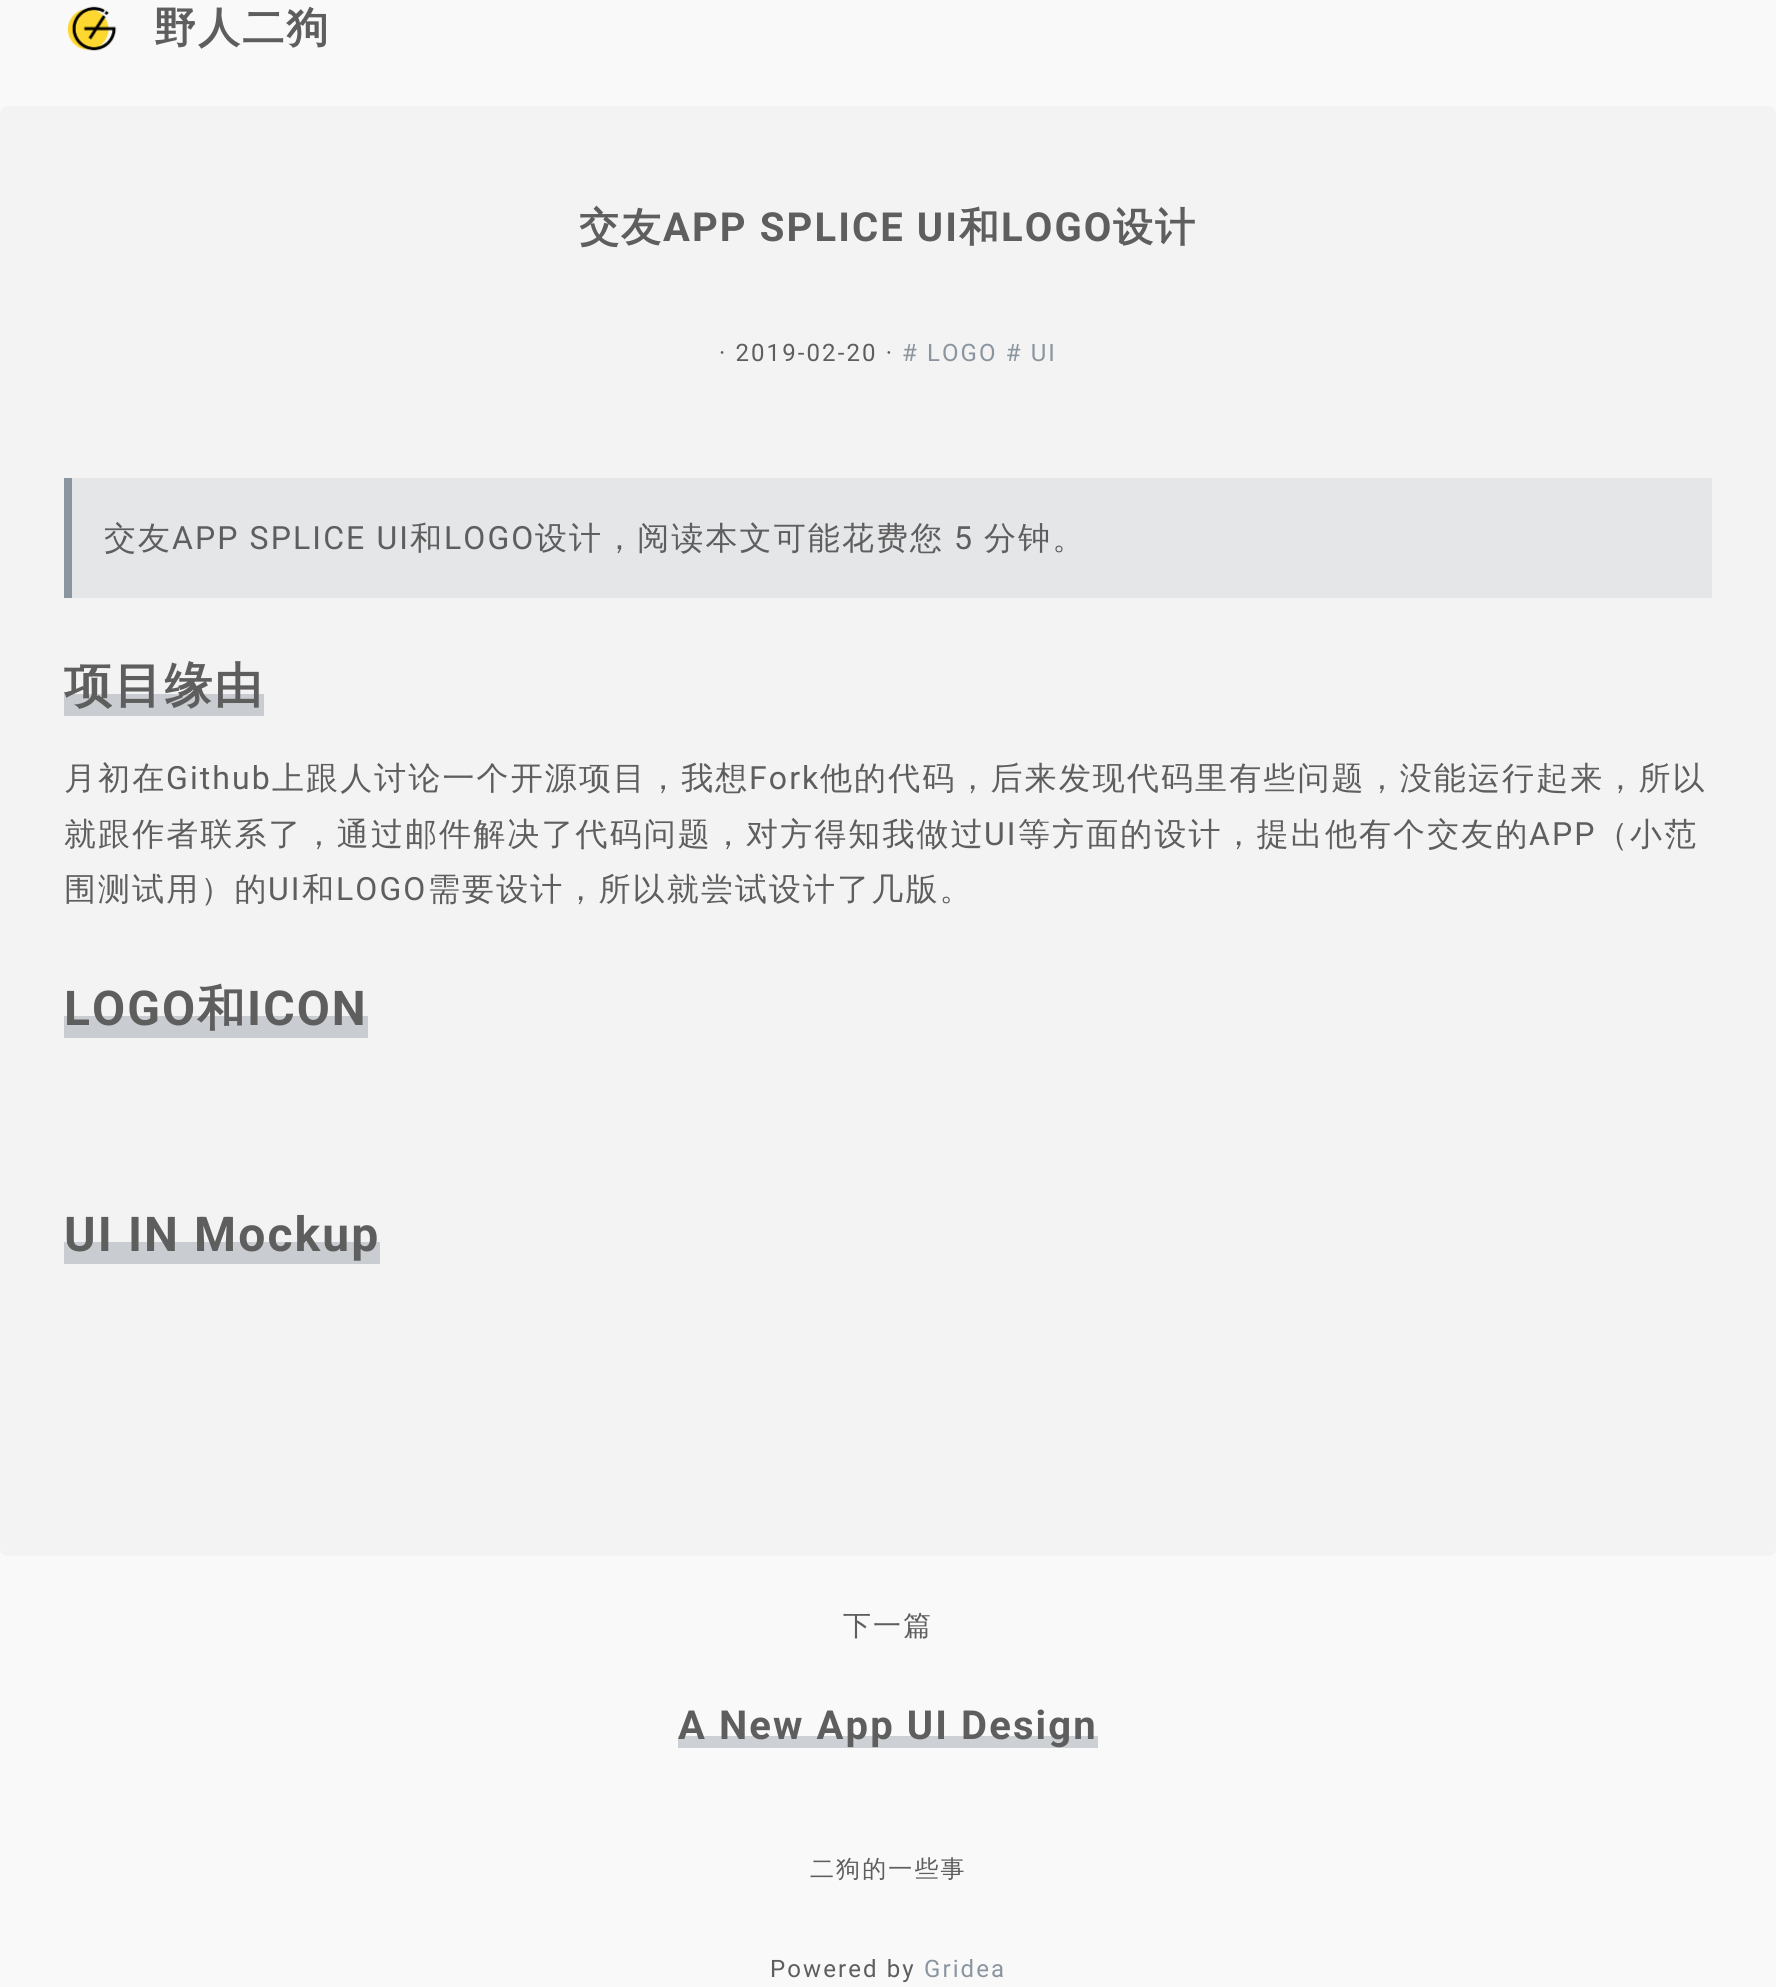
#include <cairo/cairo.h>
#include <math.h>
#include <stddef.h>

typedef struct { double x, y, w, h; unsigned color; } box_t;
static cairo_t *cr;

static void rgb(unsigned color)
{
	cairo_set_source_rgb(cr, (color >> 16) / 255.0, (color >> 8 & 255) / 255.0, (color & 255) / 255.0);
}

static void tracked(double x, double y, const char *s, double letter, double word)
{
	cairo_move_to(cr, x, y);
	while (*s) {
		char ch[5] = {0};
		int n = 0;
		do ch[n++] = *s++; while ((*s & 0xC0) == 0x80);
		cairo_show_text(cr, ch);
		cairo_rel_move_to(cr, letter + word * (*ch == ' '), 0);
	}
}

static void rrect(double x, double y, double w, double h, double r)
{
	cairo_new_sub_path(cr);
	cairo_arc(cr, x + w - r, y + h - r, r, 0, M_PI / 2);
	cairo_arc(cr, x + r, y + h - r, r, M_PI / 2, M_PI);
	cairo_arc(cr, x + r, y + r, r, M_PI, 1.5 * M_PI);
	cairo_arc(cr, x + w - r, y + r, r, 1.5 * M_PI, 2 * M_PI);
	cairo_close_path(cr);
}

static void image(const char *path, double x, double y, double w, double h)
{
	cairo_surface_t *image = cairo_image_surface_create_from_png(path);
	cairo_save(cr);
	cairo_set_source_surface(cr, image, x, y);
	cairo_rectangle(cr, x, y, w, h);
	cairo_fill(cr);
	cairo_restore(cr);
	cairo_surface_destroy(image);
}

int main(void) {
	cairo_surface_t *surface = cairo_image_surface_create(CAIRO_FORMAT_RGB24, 1776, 1987);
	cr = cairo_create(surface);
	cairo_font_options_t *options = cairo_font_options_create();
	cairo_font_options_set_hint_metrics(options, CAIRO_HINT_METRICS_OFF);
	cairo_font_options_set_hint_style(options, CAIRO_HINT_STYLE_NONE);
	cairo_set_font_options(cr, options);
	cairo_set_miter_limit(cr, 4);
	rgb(0xf9f9f9);
	cairo_paint(cr);
	image("img/1.png", 67, 6, 50, 45);
	rgb(0xf3f3f3);
	rrect(0, 106, 1776, 1450, 8);
	cairo_fill(cr);
	{
		static const box_t items[] = {
			{72, 478, 1640, 120, 0xe5e6e8},
			{64, 478, 8, 120, 0x8b959f},
			{64, 694, 200, 22, 0xc9cdd1},
			{64, 1016, 304, 22, 0xc9cdd1},
			{64, 1242, 316, 22, 0xc9cdd1},
			{678, 1736, 420, 12, 0xcdd1d5},
		};
		for (size_t i = 0; i < sizeof items / sizeof *items; i++) {
			rgb(items[i].color);
			cairo_rectangle(cr, items[i].x, items[i].y, items[i].w, items[i].h);
			cairo_fill(cr);
		}
	}
	cairo_select_font_face(cr, "WenQuanYi Zen Hei", CAIRO_FONT_SLANT_NORMAL, CAIRO_FONT_WEIGHT_BOLD);
	cairo_set_font_size(cr, 42);
	rgb(0x5e5e5e);
	tracked(154, 42, "野人二狗", 2.1, 0);
	cairo_set_font_size(cr, 40);
	tracked(579, 241, "交友", 2.1, 0);
	cairo_select_font_face(cr, "Roboto", CAIRO_FONT_SLANT_NORMAL, CAIRO_FONT_WEIGHT_BOLD);
	tracked(663, 241, "APP SPLICE UI", 2.1, 0);
	cairo_select_font_face(cr, "WenQuanYi Zen Hei", CAIRO_FONT_SLANT_NORMAL, CAIRO_FONT_WEIGHT_BOLD);
	tracked(959, 241, "和", 2.1, 0);
	cairo_select_font_face(cr, "Roboto", CAIRO_FONT_SLANT_NORMAL, CAIRO_FONT_WEIGHT_BOLD);
	tracked(1001, 241, "LOGO", 2.1, 0);
	cairo_select_font_face(cr, "WenQuanYi Zen Hei", CAIRO_FONT_SLANT_NORMAL, CAIRO_FONT_WEIGHT_BOLD);
	tracked(1113, 241, "设计", 2.1, 0);
	cairo_select_font_face(cr, "Roboto", CAIRO_FONT_SLANT_NORMAL, CAIRO_FONT_WEIGHT_NORMAL);
	cairo_set_font_size(cr, 24);
	tracked(719, 361, "· 2019-02-20 ·", 2.1, 0);
	rgb(0x8b959f);
	tracked(902, 361, "# LOGO # UI", 2.1, 0);
	cairo_select_font_face(cr, "WenQuanYi Zen Hei Medium", CAIRO_FONT_SLANT_NORMAL, CAIRO_FONT_WEIGHT_NORMAL);
	cairo_set_font_size(cr, 32);
	rgb(0x5e5e5e);
	tracked(104, 549, "交友", 2.1, 0);
	cairo_select_font_face(cr, "Roboto", CAIRO_FONT_SLANT_NORMAL, CAIRO_FONT_WEIGHT_NORMAL);
	tracked(172, 549, "APP SPLICE UI", 2.1, 0);
	cairo_select_font_face(cr, "WenQuanYi Zen Hei Medium", CAIRO_FONT_SLANT_NORMAL, CAIRO_FONT_WEIGHT_NORMAL);
	tracked(410, 549, "和", 2.1, 0);
	cairo_select_font_face(cr, "Roboto", CAIRO_FONT_SLANT_NORMAL, CAIRO_FONT_WEIGHT_NORMAL);
	tracked(444, 549, "LOGO", 2.1, 0);
	cairo_select_font_face(cr, "WenQuanYi Zen Hei Medium", CAIRO_FONT_SLANT_NORMAL, CAIRO_FONT_WEIGHT_NORMAL);
	tracked(535, 549, "设计，阅读本文可能花费您", 2.1, 0);
	cairo_select_font_face(cr, "Roboto", CAIRO_FONT_SLANT_NORMAL, CAIRO_FONT_WEIGHT_NORMAL);
	tracked(954, 549, "5", 2.1, 0);
	cairo_select_font_face(cr, "WenQuanYi Zen Hei Medium", CAIRO_FONT_SLANT_NORMAL, CAIRO_FONT_WEIGHT_NORMAL);
	tracked(984, 549, "分钟。", 2.1, 0);
	cairo_select_font_face(cr, "WenQuanYi Zen Hei", CAIRO_FONT_SLANT_NORMAL, CAIRO_FONT_WEIGHT_BOLD);
	cairo_set_font_size(cr, 48);
	tracked(64, 702, "项目缘由", 2.1, 0);
	cairo_select_font_face(cr, "WenQuanYi Zen Hei Medium", CAIRO_FONT_SLANT_NORMAL, CAIRO_FONT_WEIGHT_NORMAL);
	cairo_set_font_size(cr, 32);
	tracked(64, 789, "月初在", 2.1, 0);
	cairo_select_font_face(cr, "Roboto", CAIRO_FONT_SLANT_NORMAL, CAIRO_FONT_WEIGHT_NORMAL);
	tracked(166, 789, "Github", 2.1, 0);
	cairo_select_font_face(cr, "WenQuanYi Zen Hei Medium", CAIRO_FONT_SLANT_NORMAL, CAIRO_FONT_WEIGHT_NORMAL);
	tracked(272, 789, "上跟人讨论一个开源项目，我想", 2.1, 0);
	cairo_select_font_face(cr, "Roboto", CAIRO_FONT_SLANT_NORMAL, CAIRO_FONT_WEIGHT_NORMAL);
	tracked(749, 789, "Fork", 2.1, 0);
	cairo_select_font_face(cr, "WenQuanYi Zen Hei Medium", CAIRO_FONT_SLANT_NORMAL, CAIRO_FONT_WEIGHT_NORMAL);
	tracked(820, 789, "他的代码，后来发现代码里有些问题，没能运行起来，所以", 2.1, 0);
	tracked(64, 845, "就跟作者联系了，通过邮件解决了代码问题，对方得知我做过", 2.1, 0);
	cairo_select_font_face(cr, "Roboto", CAIRO_FONT_SLANT_NORMAL, CAIRO_FONT_WEIGHT_NORMAL);
	tracked(984, 845, "UI", 2.1, 0);
	cairo_select_font_face(cr, "WenQuanYi Zen Hei Medium", CAIRO_FONT_SLANT_NORMAL, CAIRO_FONT_WEIGHT_NORMAL);
	tracked(1018, 845, "等方面的设计，提出他有个交友的", 2.1, 0);
	cairo_select_font_face(cr, "Roboto", CAIRO_FONT_SLANT_NORMAL, CAIRO_FONT_WEIGHT_NORMAL);
	tracked(1529, 845, "APP", 2.1, 0);
	cairo_select_font_face(cr, "WenQuanYi Zen Hei Medium", CAIRO_FONT_SLANT_NORMAL, CAIRO_FONT_WEIGHT_NORMAL);
	tracked(1596, 845, "（小范", 2.1, 0);
	tracked(64, 900, "围测试用）的", 2.1, 0);
	cairo_select_font_face(cr, "Roboto", CAIRO_FONT_SLANT_NORMAL, CAIRO_FONT_WEIGHT_NORMAL);
	tracked(268, 900, "UI", 2.1, 0);
	cairo_select_font_face(cr, "WenQuanYi Zen Hei Medium", CAIRO_FONT_SLANT_NORMAL, CAIRO_FONT_WEIGHT_NORMAL);
	tracked(302, 900, "和", 2.1, 0);
	cairo_select_font_face(cr, "Roboto", CAIRO_FONT_SLANT_NORMAL, CAIRO_FONT_WEIGHT_NORMAL);
	tracked(336, 900, "LOGO", 2.1, 0);
	cairo_select_font_face(cr, "WenQuanYi Zen Hei Medium", CAIRO_FONT_SLANT_NORMAL, CAIRO_FONT_WEIGHT_NORMAL);
	tracked(428, 900, "需要设计，所以就尝试设计了几版。", 2.1, 0);
	cairo_select_font_face(cr, "Roboto", CAIRO_FONT_SLANT_NORMAL, CAIRO_FONT_WEIGHT_BOLD);
	cairo_set_font_size(cr, 48);
	tracked(64, 1025, "LOGO", 2.1, 0);
	cairo_select_font_face(cr, "WenQuanYi Zen Hei", CAIRO_FONT_SLANT_NORMAL, CAIRO_FONT_WEIGHT_BOLD);
	tracked(197, 1025, "和", 2.1, 0);
	cairo_select_font_face(cr, "Roboto", CAIRO_FONT_SLANT_NORMAL, CAIRO_FONT_WEIGHT_BOLD);
	tracked(247, 1025, "ICON", 2.1, 0);
	tracked(64, 1251, "UI IN Mockup", 2.1, 0);
	cairo_select_font_face(cr, "WenQuanYi Zen Hei Medium", CAIRO_FONT_SLANT_NORMAL, CAIRO_FONT_WEIGHT_NORMAL);
	cairo_set_font_size(cr, 28);
	tracked(843, 1635, "下一篇", 2.1, 0);
	cairo_select_font_face(cr, "Roboto", CAIRO_FONT_SLANT_NORMAL, CAIRO_FONT_WEIGHT_BOLD);
	cairo_set_font_size(cr, 40);
	tracked(678, 1739, "A New App UI Design", 2.1, 0);
	cairo_select_font_face(cr, "WenQuanYi Zen Hei Medium", CAIRO_FONT_SLANT_NORMAL, CAIRO_FONT_WEIGHT_NORMAL);
	cairo_set_font_size(cr, 24);
	tracked(810, 1877, "二狗的一些事", 2.1, 0);
	cairo_select_font_face(cr, "Roboto", CAIRO_FONT_SLANT_NORMAL, CAIRO_FONT_WEIGHT_NORMAL);
	tracked(770, 1977, "Powered by", 2.1, 0);
	rgb(0x8b959f);
	tracked(924, 1977, "Gridea", 2.1, 0);
	cairo_surface_write_to_png(surface, "page.png");
	cairo_font_options_destroy(options);
	cairo_destroy(cr);
	cairo_surface_destroy(surface);
	return 0;
}
